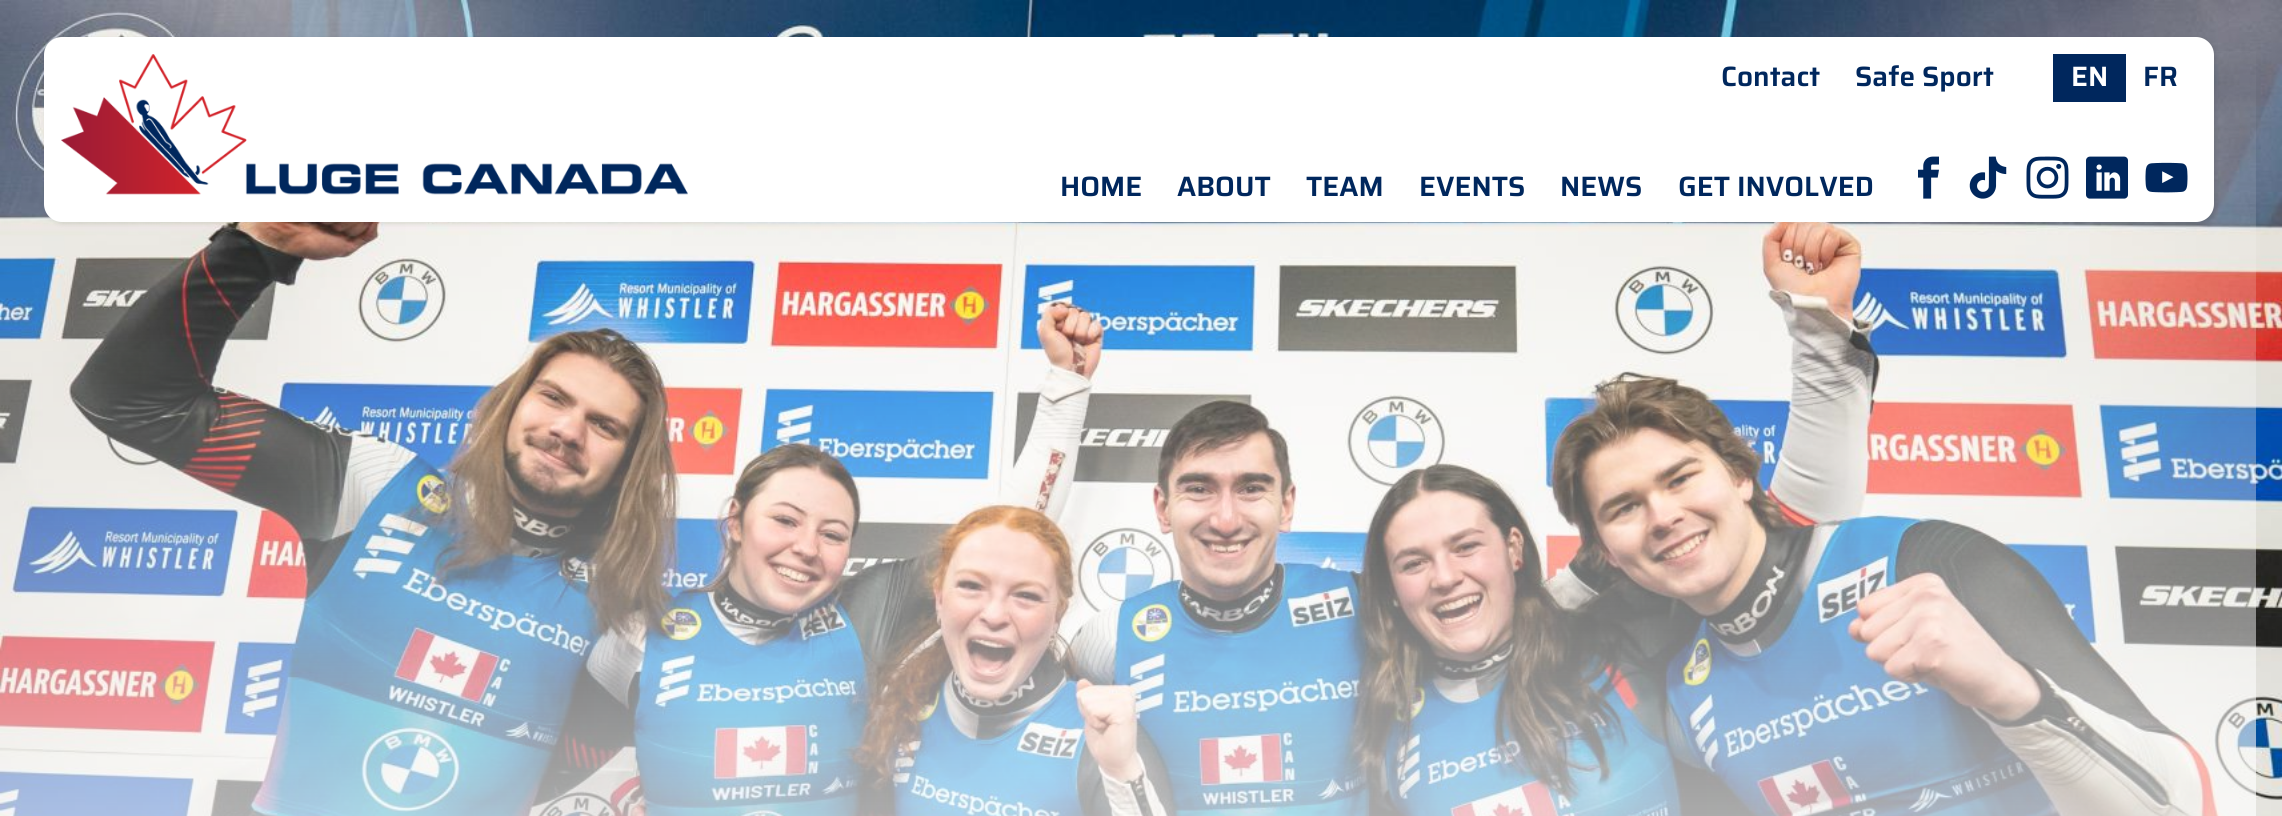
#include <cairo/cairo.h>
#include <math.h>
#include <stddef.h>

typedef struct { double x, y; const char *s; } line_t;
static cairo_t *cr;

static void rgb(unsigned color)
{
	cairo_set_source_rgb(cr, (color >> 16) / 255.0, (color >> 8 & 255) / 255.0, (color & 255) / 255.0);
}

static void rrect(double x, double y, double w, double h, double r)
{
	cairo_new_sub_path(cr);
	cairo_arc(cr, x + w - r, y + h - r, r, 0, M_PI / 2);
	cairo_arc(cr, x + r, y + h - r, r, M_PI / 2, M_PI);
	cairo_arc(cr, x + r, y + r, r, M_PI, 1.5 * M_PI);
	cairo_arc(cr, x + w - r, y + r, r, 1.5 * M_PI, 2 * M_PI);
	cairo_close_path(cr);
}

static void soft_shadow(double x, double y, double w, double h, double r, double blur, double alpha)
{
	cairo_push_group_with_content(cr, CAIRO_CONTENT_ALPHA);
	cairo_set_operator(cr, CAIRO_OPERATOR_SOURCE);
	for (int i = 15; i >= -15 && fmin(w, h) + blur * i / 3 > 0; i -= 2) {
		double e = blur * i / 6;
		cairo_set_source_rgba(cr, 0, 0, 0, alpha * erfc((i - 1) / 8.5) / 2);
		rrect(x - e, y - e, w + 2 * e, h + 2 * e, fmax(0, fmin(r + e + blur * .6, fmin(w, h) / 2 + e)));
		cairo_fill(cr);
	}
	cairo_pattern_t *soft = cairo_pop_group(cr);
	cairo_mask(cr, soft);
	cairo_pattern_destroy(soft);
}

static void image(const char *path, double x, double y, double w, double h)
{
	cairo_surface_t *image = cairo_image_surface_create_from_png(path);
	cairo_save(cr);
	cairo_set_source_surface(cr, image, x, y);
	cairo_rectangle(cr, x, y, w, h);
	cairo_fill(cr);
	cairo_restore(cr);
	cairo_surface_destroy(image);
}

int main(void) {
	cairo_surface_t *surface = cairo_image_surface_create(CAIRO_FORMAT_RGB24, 2282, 816);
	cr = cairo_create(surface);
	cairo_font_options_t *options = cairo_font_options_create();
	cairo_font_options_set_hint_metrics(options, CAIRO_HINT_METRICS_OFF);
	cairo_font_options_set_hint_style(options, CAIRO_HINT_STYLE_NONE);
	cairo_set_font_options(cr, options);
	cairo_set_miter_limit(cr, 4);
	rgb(0xffffff);
	cairo_paint(cr);
	image("img/1.png", 0, 0, 2282, 816);
	image("img/2.png", 0, 51, 2256, 765);
	rgb(0x000000);
	soft_shadow(46, 39, 2170, 185, 18, 2.5, 0.1);
	rgb(0xffffff);
	rrect(44, 37, 2170, 185, 18);
	cairo_fill(cr);
	image("img/3.png", 61, 54, 627, 141);
	rgb(0x00275d);
	cairo_rectangle(cr, 2053, 54, 73, 48);
	cairo_fill(cr);
	image("img/4.png", 1918, 156, 21, 43);
	image("img/5.png", 1969, 156, 38, 43);
	image("img/6.png", 2026, 156, 43, 43);
	image("img/7.png", 2086, 156, 42, 43);
	image("img/8.png", 2145, 162, 43, 31);
	cairo_select_font_face(cr, "Saira SemiBold", CAIRO_FONT_SLANT_NORMAL, CAIRO_FONT_WEIGHT_NORMAL);
	cairo_set_font_size(cr, 28);
	cairo_move_to(cr, 1721, 86);
	cairo_show_text(cr, "Contact");
	cairo_move_to(cr, 1855, 86);
	cairo_show_text(cr, "Safe Sport");
	rgb(0xffffff);
	cairo_move_to(cr, 2071, 86);
	cairo_show_text(cr, "EN");
	rgb(0x00275d);
	{
		static const line_t items[] = {
			{2143, 86, "FR"},
			{1060, 196, "HOME"},
			{1177, 196, "ABOUT"},
			{1306, 196, "TEAM"},
			{1419, 196, "EVENTS"},
			{1560, 196, "NEWS"},
			{1678, 196, "GET INVOLVED"},
		};
		for (size_t i = 0; i < sizeof items / sizeof *items; i++) {
			cairo_move_to(cr, items[i].x, items[i].y);
			cairo_show_text(cr, items[i].s);
		}
	}
	cairo_surface_write_to_png(surface, "page.png");
	cairo_font_options_destroy(options);
	cairo_destroy(cr);
	cairo_surface_destroy(surface);
	return 0;
}
